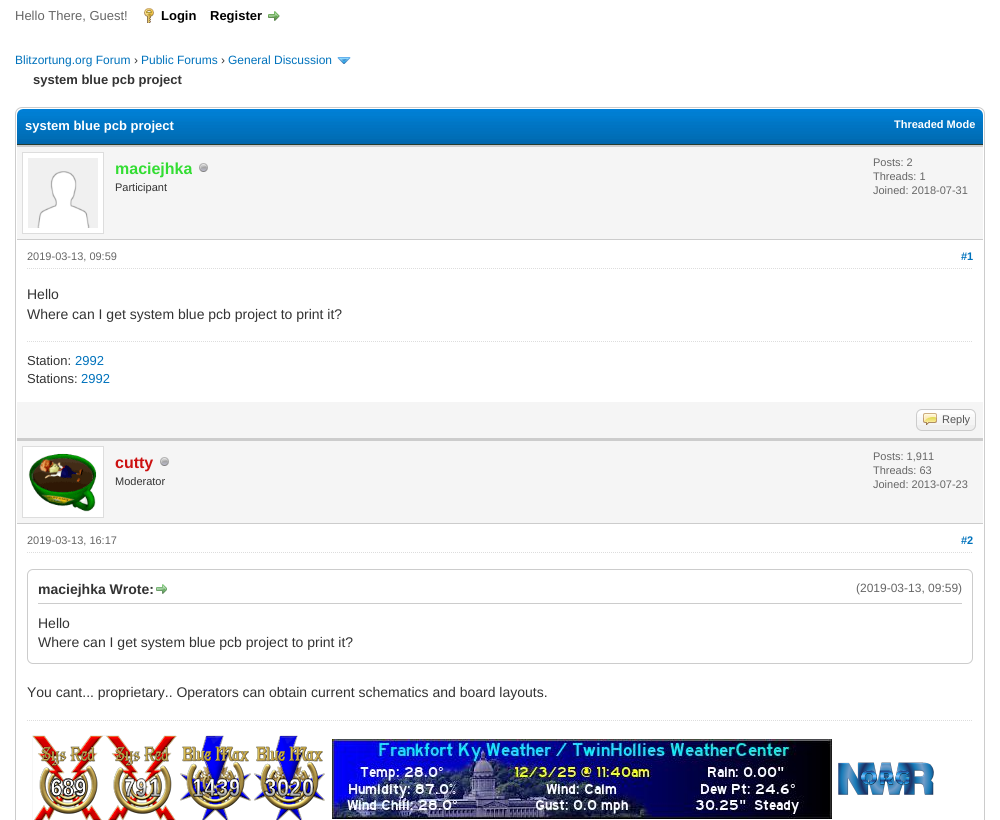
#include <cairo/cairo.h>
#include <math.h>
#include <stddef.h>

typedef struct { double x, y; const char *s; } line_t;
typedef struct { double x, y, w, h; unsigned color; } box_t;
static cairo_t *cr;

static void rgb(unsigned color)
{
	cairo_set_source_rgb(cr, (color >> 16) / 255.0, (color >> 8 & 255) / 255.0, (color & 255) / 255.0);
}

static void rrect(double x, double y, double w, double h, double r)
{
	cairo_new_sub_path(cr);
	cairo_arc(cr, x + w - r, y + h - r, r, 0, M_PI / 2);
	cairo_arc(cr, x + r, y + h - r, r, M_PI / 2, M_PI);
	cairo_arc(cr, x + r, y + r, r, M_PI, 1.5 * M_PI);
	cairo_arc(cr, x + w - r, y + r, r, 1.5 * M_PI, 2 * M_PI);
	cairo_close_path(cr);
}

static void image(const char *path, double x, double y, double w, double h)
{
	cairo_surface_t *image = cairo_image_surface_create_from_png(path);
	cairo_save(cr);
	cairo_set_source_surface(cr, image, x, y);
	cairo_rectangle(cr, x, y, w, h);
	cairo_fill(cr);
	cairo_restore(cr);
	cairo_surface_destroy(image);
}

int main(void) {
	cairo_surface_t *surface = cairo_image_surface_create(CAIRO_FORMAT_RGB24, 1000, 820);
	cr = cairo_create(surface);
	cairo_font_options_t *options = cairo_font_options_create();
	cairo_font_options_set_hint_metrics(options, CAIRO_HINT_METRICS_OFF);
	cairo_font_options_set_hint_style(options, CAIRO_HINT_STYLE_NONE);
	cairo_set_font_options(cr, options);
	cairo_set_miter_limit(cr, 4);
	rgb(0xffffff);
	cairo_paint(cr);
	image("img/1.png", 144, 8, 10, 15);
	image("img/2.png", 268, 11, 12, 10);
	image("img/3.png", 337, 57, 14, 7);
	rrect(15.5, 107.5, 969, 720, 6.5);
	rgb(0xcccccc);
	cairo_set_line_width(cr, 1);
	cairo_stroke(cr);
	image("img/4.png", 17, 109, 966, 35);
	{
		static const box_t items[] = {
			{17, 144, 966, 1, 0x263c30},
			{17, 147, 966, 92, 0xf5f5f5},
			{17, 145, 966, 2, 0xcccccc},
			{17, 239, 966, 1, 0xcccccc},
		};
		for (size_t i = 0; i < sizeof items / sizeof *items; i++) {
			rgb(items[i].color);
			cairo_rectangle(cr, items[i].x, items[i].y, items[i].w, items[i].h);
			cairo_fill(cr);
		}
	}
	rgb(0xffffff);
	cairo_rectangle(cr, 22.5, 152.5, 81, 81);
	cairo_fill_preserve(cr);
	rgb(0xdddddd);
	cairo_stroke(cr);
	image("img/5.png", 28, 158, 70, 70);
	image("img/6.png", 199, 163, 9, 9);
	cairo_new_path(cr);
	cairo_move_to(cr, 27, 268.5);
	cairo_line_to(cr, 973, 268.5);
	cairo_set_dash(cr, (double[]){1, 1}, 2, 0);
	cairo_stroke(cr);
	cairo_new_path(cr);
	cairo_move_to(cr, 27, 341.5);
	cairo_line_to(cr, 973, 341.5);
	cairo_stroke(cr);
	rgb(0xf5f5f5);
	cairo_rectangle(cr, 17, 402, 966, 36);
	cairo_fill(cr);
	rgb(0xcccccc);
	cairo_rectangle(cr, 17, 438, 966, 3);
	cairo_fill(cr);
	rgb(0xeeeeee);
	rrect(916, 409, 60, 22, 6);
	cairo_fill(cr);
	image("img/7.png", 916, 410, 60, 15);
	rrect(916.5, 409.5, 59, 21, 5.5);
	rgb(0xcccccc);
	cairo_set_dash(cr, NULL, 0, 0);
	cairo_stroke(cr);
	image("img/8.png", 923, 413, 14, 12);
	rgb(0xf5f5f5);
	cairo_rectangle(cr, 17, 441, 966, 82);
	cairo_fill(cr);
	rgb(0xcccccc);
	cairo_rectangle(cr, 17, 523, 966, 1);
	cairo_fill(cr);
	rgb(0xffffff);
	cairo_rectangle(cr, 22.5, 446.5, 81, 71);
	cairo_fill_preserve(cr);
	rgb(0xdddddd);
	cairo_stroke(cr);
	image("img/9.png", 28, 453, 69, 59);
	image("img/6.png", 160, 457, 9, 9);
	cairo_new_path(cr);
	cairo_move_to(cr, 27, 552.5);
	cairo_line_to(cr, 973, 552.5);
	cairo_set_dash(cr, (double[]){1, 1}, 2, 0);
	cairo_stroke(cr);
	rrect(27.5, 569.5, 945, 94, 5.5);
	rgb(0xcccccc);
	cairo_set_dash(cr, NULL, 0, 0);
	cairo_stroke(cr);
	cairo_rectangle(cr, 38, 603, 924, 1);
	cairo_fill(cr);
	image("img/10.png", 156, 584, 11, 10);
	cairo_new_path(cr);
	cairo_move_to(cr, 27, 720.5);
	cairo_line_to(cr, 973, 720.5);
	rgb(0xdddddd);
	cairo_set_dash(cr, (double[]){1, 1}, 2, 0);
	cairo_stroke(cr);
	image("img/11.png", 32, 735, 293, 85);
	image("img/12.png", 332, 739, 500, 80);
	image("img/13.png", 838, 762, 96, 33);
	cairo_select_font_face(cr, "Liberation Sans", CAIRO_FONT_SLANT_NORMAL, CAIRO_FONT_WEIGHT_NORMAL);
	cairo_set_font_size(cr, 13);
	rgb(0x666666);
	cairo_move_to(cr, 15, 20);
	cairo_show_text(cr, "Hello There, Guest!");
	cairo_select_font_face(cr, "Liberation Sans", CAIRO_FONT_SLANT_NORMAL, CAIRO_FONT_WEIGHT_BOLD);
	rgb(0x000000);
	cairo_move_to(cr, 161, 20);
	cairo_show_text(cr, "Login");
	cairo_move_to(cr, 210, 20);
	cairo_show_text(cr, "Register");
	cairo_select_font_face(cr, "Liberation Sans", CAIRO_FONT_SLANT_NORMAL, CAIRO_FONT_WEIGHT_NORMAL);
	cairo_set_font_size(cr, 12);
	rgb(0x0072bc);
	cairo_move_to(cr, 15, 64);
	cairo_show_text(cr, "Blitzortung.org Forum");
	rgb(0x333333);
	cairo_move_to(cr, 134, 64);
	cairo_show_text(cr, "›");
	rgb(0x0072bc);
	cairo_move_to(cr, 141, 64);
	cairo_show_text(cr, "Public Forums");
	rgb(0x333333);
	cairo_move_to(cr, 221, 64);
	cairo_show_text(cr, "›");
	rgb(0x0072bc);
	cairo_move_to(cr, 228, 64);
	cairo_show_text(cr, "General Discussion");
	cairo_select_font_face(cr, "Liberation Sans", CAIRO_FONT_SLANT_NORMAL, CAIRO_FONT_WEIGHT_BOLD);
	cairo_set_font_size(cr, 13);
	rgb(0x333333);
	cairo_move_to(cr, 33, 84);
	cairo_show_text(cr, "system blue pcb project");
	rgb(0xffffff);
	cairo_move_to(cr, 25, 130);
	cairo_show_text(cr, "system blue pcb project");
	cairo_set_font_size(cr, 11);
	cairo_move_to(cr, 894, 128);
	cairo_show_text(cr, "Threaded Mode");
	cairo_set_font_size(cr, 16);
	rgb(0x33dd33);
	cairo_move_to(cr, 115, 174);
	cairo_show_text(cr, "maciejhka");
	cairo_select_font_face(cr, "Liberation Sans", CAIRO_FONT_SLANT_NORMAL, CAIRO_FONT_WEIGHT_NORMAL);
	cairo_set_font_size(cr, 11);
	rgb(0x333333);
	cairo_move_to(cr, 115, 191);
	cairo_show_text(cr, "Participant");
	rgb(0x666666);
	{
		static const line_t items[] = {
			{873, 166, "Posts: 2"},
			{873, 180, "Threads: 1"},
			{873, 194, "Joined: 2018-07-31"},
			{27, 260, "2019-03-13, 09:59"},
		};
		for (size_t i = 0; i < sizeof items / sizeof *items; i++) {
			cairo_move_to(cr, items[i].x, items[i].y);
			cairo_show_text(cr, items[i].s);
		}
	}
	cairo_select_font_face(cr, "Liberation Sans", CAIRO_FONT_SLANT_NORMAL, CAIRO_FONT_WEIGHT_BOLD);
	rgb(0x0072bc);
	cairo_move_to(cr, 961, 260);
	cairo_show_text(cr, "#1");
	cairo_select_font_face(cr, "Liberation Sans", CAIRO_FONT_SLANT_NORMAL, CAIRO_FONT_WEIGHT_NORMAL);
	cairo_set_font_size(cr, 14);
	rgb(0x333333);
	cairo_move_to(cr, 27, 299);
	cairo_show_text(cr, "Hello");
	cairo_move_to(cr, 27, 319);
	cairo_show_text(cr, "Where can I get system blue pcb project to print it?");
	cairo_set_font_size(cr, 13);
	cairo_move_to(cr, 27, 365);
	cairo_show_text(cr, "Station:");
	rgb(0x0072bc);
	cairo_move_to(cr, 75, 365);
	cairo_show_text(cr, "2992");
	rgb(0x333333);
	cairo_move_to(cr, 27, 383);
	cairo_show_text(cr, "Stations:");
	rgb(0x0072bc);
	cairo_move_to(cr, 81, 383);
	cairo_show_text(cr, "2992");
	cairo_set_font_size(cr, 11);
	rgb(0x555555);
	cairo_move_to(cr, 942, 423);
	cairo_show_text(cr, "Reply");
	cairo_select_font_face(cr, "Liberation Sans", CAIRO_FONT_SLANT_NORMAL, CAIRO_FONT_WEIGHT_BOLD);
	cairo_set_font_size(cr, 16);
	rgb(0xcc1111);
	cairo_move_to(cr, 115, 468);
	cairo_show_text(cr, "cutty");
	cairo_select_font_face(cr, "Liberation Sans", CAIRO_FONT_SLANT_NORMAL, CAIRO_FONT_WEIGHT_NORMAL);
	cairo_set_font_size(cr, 11);
	rgb(0x333333);
	cairo_move_to(cr, 115, 485);
	cairo_show_text(cr, "Moderator");
	rgb(0x666666);
	{
		static const line_t items[] = {
			{873, 460, "Posts: 1,911"},
			{873, 474, "Threads: 63"},
			{873, 488, "Joined: 2013-07-23"},
			{27, 544, "2019-03-13, 16:17"},
		};
		for (size_t i = 0; i < sizeof items / sizeof *items; i++) {
			cairo_move_to(cr, items[i].x, items[i].y);
			cairo_show_text(cr, items[i].s);
		}
	}
	cairo_select_font_face(cr, "Liberation Sans", CAIRO_FONT_SLANT_NORMAL, CAIRO_FONT_WEIGHT_BOLD);
	rgb(0x0072bc);
	cairo_move_to(cr, 961, 544);
	cairo_show_text(cr, "#2");
	cairo_set_font_size(cr, 14);
	rgb(0x333333);
	cairo_move_to(cr, 38, 594);
	cairo_show_text(cr, "maciejhka Wrote:");
	cairo_select_font_face(cr, "Liberation Sans", CAIRO_FONT_SLANT_NORMAL, CAIRO_FONT_WEIGHT_NORMAL);
	cairo_set_font_size(cr, 12);
	rgb(0x666666);
	cairo_move_to(cr, 856, 592);
	cairo_show_text(cr, "(2019-03-13, 09:59)");
	cairo_set_font_size(cr, 14);
	rgb(0x333333);
	{
		static const line_t items[] = {
			{38, 628, "Hello"},
			{38, 647, "Where can I get system blue pcb project to print it?"},
			{27, 697, "You cant... proprietary.. Operators can obtain current schematics and board layouts."},
		};
		for (size_t i = 0; i < sizeof items / sizeof *items; i++) {
			cairo_move_to(cr, items[i].x, items[i].y);
			cairo_show_text(cr, items[i].s);
		}
	}
	cairo_surface_write_to_png(surface, "page.png");
	cairo_font_options_destroy(options);
	cairo_destroy(cr);
	cairo_surface_destroy(surface);
	return 0;
}
